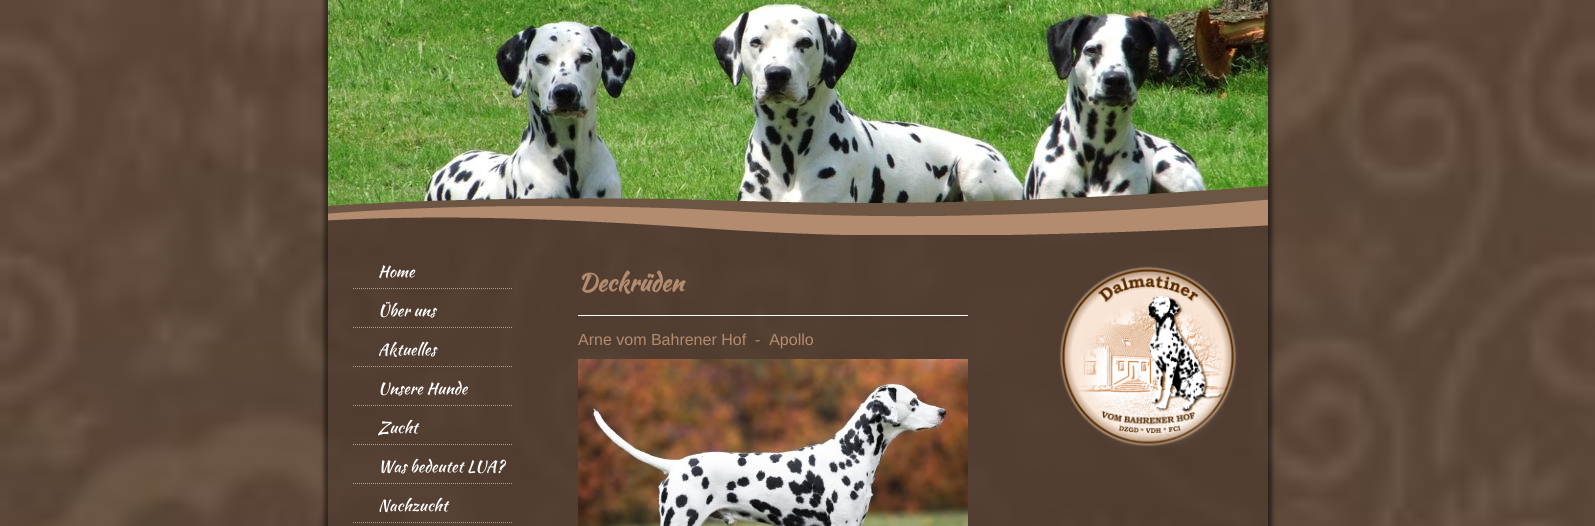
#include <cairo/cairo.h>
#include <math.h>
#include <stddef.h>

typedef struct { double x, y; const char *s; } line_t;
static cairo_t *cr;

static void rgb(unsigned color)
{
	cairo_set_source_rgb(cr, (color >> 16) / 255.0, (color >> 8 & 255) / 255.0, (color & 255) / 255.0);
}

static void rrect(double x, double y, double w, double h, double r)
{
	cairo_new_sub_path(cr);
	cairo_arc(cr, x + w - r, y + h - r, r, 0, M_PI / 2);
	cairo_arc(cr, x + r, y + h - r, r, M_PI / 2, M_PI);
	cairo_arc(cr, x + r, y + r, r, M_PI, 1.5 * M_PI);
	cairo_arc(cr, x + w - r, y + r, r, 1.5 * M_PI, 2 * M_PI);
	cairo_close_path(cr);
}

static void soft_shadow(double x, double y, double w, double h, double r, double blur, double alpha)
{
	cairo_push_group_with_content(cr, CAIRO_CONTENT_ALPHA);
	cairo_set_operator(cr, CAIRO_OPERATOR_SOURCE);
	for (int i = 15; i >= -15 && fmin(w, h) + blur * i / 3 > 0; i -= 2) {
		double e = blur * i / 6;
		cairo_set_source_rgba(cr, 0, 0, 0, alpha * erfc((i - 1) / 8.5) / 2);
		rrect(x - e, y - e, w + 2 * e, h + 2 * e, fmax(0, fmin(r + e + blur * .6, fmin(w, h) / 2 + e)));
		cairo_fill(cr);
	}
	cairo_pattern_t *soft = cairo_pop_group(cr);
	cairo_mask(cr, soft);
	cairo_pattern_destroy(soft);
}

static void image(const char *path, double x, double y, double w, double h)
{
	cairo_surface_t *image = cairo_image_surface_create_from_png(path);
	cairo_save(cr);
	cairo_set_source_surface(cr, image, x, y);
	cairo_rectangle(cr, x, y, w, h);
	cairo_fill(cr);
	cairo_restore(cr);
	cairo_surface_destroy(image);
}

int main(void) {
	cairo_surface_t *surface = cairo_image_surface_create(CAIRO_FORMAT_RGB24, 1595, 526);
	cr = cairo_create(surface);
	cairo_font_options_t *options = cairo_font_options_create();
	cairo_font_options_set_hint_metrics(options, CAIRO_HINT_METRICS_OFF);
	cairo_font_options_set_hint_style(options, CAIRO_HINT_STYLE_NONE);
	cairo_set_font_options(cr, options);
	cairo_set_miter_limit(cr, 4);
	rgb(0xffffff);
	cairo_paint(cr);
	image("img/1.png", 0, 0, 1595, 526);
	cairo_save(cr);
	cairo_set_fill_rule(cr, CAIRO_FILL_RULE_EVEN_ODD);
	cairo_new_path(cr);
	cairo_move_to(cr, 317, 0);
	cairo_line_to(cr, 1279, 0);
	cairo_line_to(cr, 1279, 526);
	cairo_line_to(cr, 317, 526);
	cairo_close_path(cr);
	cairo_move_to(cr, 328, 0);
	cairo_line_to(cr, 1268, 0);
	cairo_line_to(cr, 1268, 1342);
	cairo_line_to(cr, 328, 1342);
	cairo_close_path(cr);
	cairo_clip(cr);
	rgb(0x000000);
	soft_shadow(324, -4, 948, 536, 0, 2, 0.5);
	cairo_restore(cr);
	cairo_set_source_rgba(cr, 0.306, 0.227, 0.184, 0.7);
	cairo_rectangle(cr, 328, 213, 940, 313);
	cairo_fill(cr);
	image("img/2.png", 328, 0, 940, 206);
	image("img/3.png", 328, 185, 940, 50);
	cairo_new_path(cr);
	cairo_move_to(cr, 353, 288.5);
	cairo_line_to(cr, 513, 288.5);
	rgb(0xa1a099);
	cairo_set_line_width(cr, 1);
	cairo_set_dash(cr, (double[]){1, 1}, 2, 0);
	cairo_stroke(cr);
	cairo_new_path(cr);
	cairo_move_to(cr, 353, 327.5);
	cairo_line_to(cr, 513, 327.5);
	cairo_stroke(cr);
	cairo_new_path(cr);
	cairo_move_to(cr, 353, 366.5);
	cairo_line_to(cr, 513, 366.5);
	cairo_stroke(cr);
	cairo_new_path(cr);
	cairo_move_to(cr, 353, 405.5);
	cairo_line_to(cr, 513, 405.5);
	cairo_stroke(cr);
	cairo_new_path(cr);
	cairo_move_to(cr, 353, 444.5);
	cairo_line_to(cr, 513, 444.5);
	cairo_stroke(cr);
	cairo_new_path(cr);
	cairo_move_to(cr, 353, 483.5);
	cairo_line_to(cr, 513, 483.5);
	cairo_stroke(cr);
	cairo_new_path(cr);
	cairo_move_to(cr, 353, 522.5);
	cairo_line_to(cr, 513, 522.5);
	cairo_stroke(cr);
	rgb(0xffffff);
	cairo_rectangle(cr, 578, 315, 390, 1);
	cairo_fill(cr);
	image("img/4.png", 578, 359, 390, 167);
	image("img/5.png", 1059, 266, 178, 181);
	cairo_select_font_face(cr, "Kaushan Script", CAIRO_FONT_SLANT_NORMAL, CAIRO_FONT_WEIGHT_NORMAL);
	cairo_set_font_size(cr, 16);
	{
		static const line_t items[] = {
			{378, 277, "Home"},
			{378, 316, "Über uns"},
			{378, 355, "Aktuelles"},
			{378, 394, "Unsere Hunde"},
			{378, 433, "Zucht"},
			{378, 472, "Was bedeutet LUA?"},
			{378, 511, "Nachzucht"},
		};
		for (size_t i = 0; i < sizeof items / sizeof *items; i++) {
			cairo_move_to(cr, items[i].x, items[i].y);
			cairo_show_text(cr, items[i].s);
		}
	}
	cairo_select_font_face(cr, "Kaushan Script", CAIRO_FONT_SLANT_NORMAL, CAIRO_FONT_WEIGHT_BOLD);
	cairo_set_font_size(cr, 24);
	rgb(0xb38c6f);
	cairo_move_to(cr, 578, 291);
	cairo_show_text(cr, "Deckrüden");
	cairo_select_font_face(cr, "Liberation Sans", CAIRO_FONT_SLANT_NORMAL, CAIRO_FONT_WEIGHT_NORMAL);
	cairo_set_font_size(cr, 16);
	cairo_move_to(cr, 578, 345);
	cairo_show_text(cr, "Arne vom Bahrener Hof  -  Apollo");
	cairo_surface_write_to_png(surface, "page.png");
	cairo_font_options_destroy(options);
	cairo_destroy(cr);
	cairo_surface_destroy(surface);
	return 0;
}
